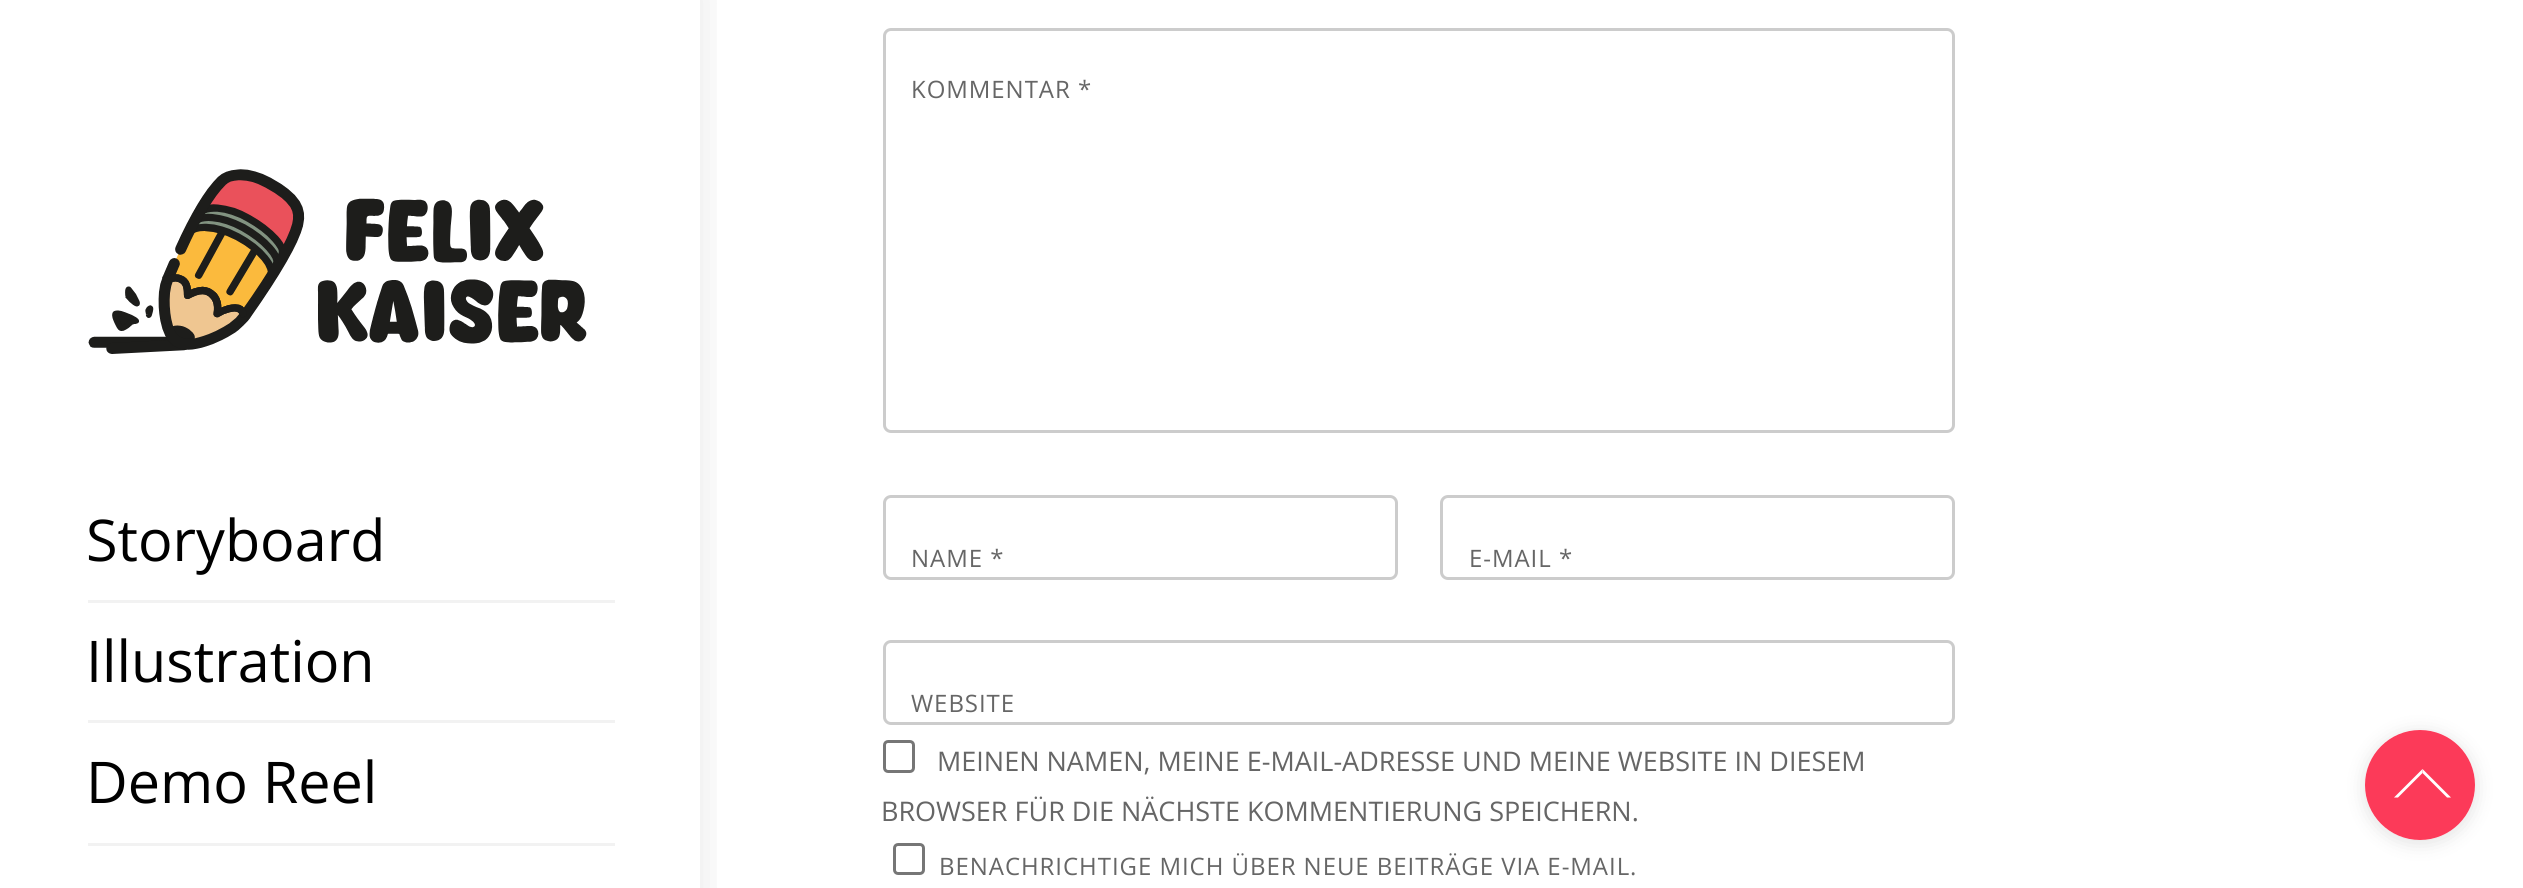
#include <cairo/cairo.h>
#include <math.h>
#include <stddef.h>

typedef struct { double x, y; const char *s; } line_t;
typedef struct { double x, y, w, h; unsigned color; } box_t;
static cairo_t *cr;

static void rgb(unsigned color)
{
	cairo_set_source_rgb(cr, (color >> 16) / 255.0, (color >> 8 & 255) / 255.0, (color & 255) / 255.0);
}

static void tracked(double x, double y, const char *s, double letter, double word)
{
	cairo_move_to(cr, x, y);
	while (*s) {
		char ch[5] = {0};
		int n = 0;
		do ch[n++] = *s++; while ((*s & 0xC0) == 0x80);
		cairo_show_text(cr, ch);
		cairo_rel_move_to(cr, letter + word * (*ch == ' '), 0);
	}
}

static void rrect(double x, double y, double w, double h, double r)
{
	cairo_new_sub_path(cr);
	cairo_arc(cr, x + w - r, y + h - r, r, 0, M_PI / 2);
	cairo_arc(cr, x + r, y + h - r, r, M_PI / 2, M_PI);
	cairo_arc(cr, x + r, y + r, r, M_PI, 1.5 * M_PI);
	cairo_arc(cr, x + w - r, y + r, r, 1.5 * M_PI, 2 * M_PI);
	cairo_close_path(cr);
}

static void soft_shadow(double x, double y, double w, double h, double r, double blur, double alpha)
{
	cairo_push_group_with_content(cr, CAIRO_CONTENT_ALPHA);
	cairo_set_operator(cr, CAIRO_OPERATOR_SOURCE);
	for (int i = 15; i >= -15 && fmin(w, h) + blur * i / 3 > 0; i -= 2) {
		double e = blur * i / 6;
		cairo_set_source_rgba(cr, 0, 0, 0, alpha * erfc((i - 1) / 8.5) / 2);
		rrect(x - e, y - e, w + 2 * e, h + 2 * e, fmax(0, fmin(r + e + blur * .6, fmin(w, h) / 2 + e)));
		cairo_fill(cr);
	}
	cairo_pattern_t *soft = cairo_pop_group(cr);
	cairo_mask(cr, soft);
	cairo_pattern_destroy(soft);
}

static void image(const char *path, double x, double y, double w, double h)
{
	cairo_surface_t *image = cairo_image_surface_create_from_png(path);
	cairo_save(cr);
	cairo_set_source_surface(cr, image, x, y);
	cairo_rectangle(cr, x, y, w, h);
	cairo_fill(cr);
	cairo_restore(cr);
	cairo_surface_destroy(image);
}

int main(void) {
	cairo_surface_t *surface = cairo_image_surface_create(CAIRO_FORMAT_RGB24, 2523, 888);
	cr = cairo_create(surface);
	cairo_font_options_t *options = cairo_font_options_create();
	cairo_font_options_set_hint_metrics(options, CAIRO_HINT_METRICS_OFF);
	cairo_font_options_set_hint_style(options, CAIRO_HINT_STYLE_NONE);
	cairo_set_font_options(cr, options);
	cairo_set_miter_limit(cr, 4);
	rgb(0xffffff);
	cairo_paint(cr);
	cairo_save(cr);
	cairo_rectangle(cr, 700, 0, 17, 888);
	cairo_clip(cr);
	rgb(0x000000);
	soft_shadow(-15, -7, 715, 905, 0, 20, 0.1);
	cairo_restore(cr);
	image("img/1.png", 88, 169, 499, 185);
	{
		static const box_t items[] = {
			{88, 600, 527, 3, 0xf2f2f2},
			{88, 720, 527, 3, 0xf2f2f2},
			{88, 843, 527, 3, 0xf2f2f2},
		};
		for (size_t i = 0; i < sizeof items / sizeof *items; i++) {
			rgb(items[i].color);
			cairo_rectangle(cr, items[i].x, items[i].y, items[i].w, items[i].h);
			cairo_fill(cr);
		}
	}
	rrect(884.5, 29.5, 1069, 402, 6.5);
	rgb(0xcccccc);
	cairo_set_line_width(cr, 3);
	cairo_stroke(cr);
	rrect(884.5, 496.5, 512, 82, 6.5);
	cairo_stroke(cr);
	rrect(1441.5, 496.5, 512, 82, 6.5);
	cairo_stroke(cr);
	rrect(884.5, 641.5, 1069, 82, 6.5);
	cairo_stroke(cr);
	rrect(884.5, 741.5, 29, 30, 3.5);
	rgb(0x767676);
	cairo_stroke(cr);
	rrect(894.5, 844.5, 29, 29, 3.5);
	cairo_stroke(cr);
	cairo_save(cr);
	cairo_set_fill_rule(cr, CAIRO_FILL_RULE_EVEN_ODD);
	cairo_new_path(cr);
	cairo_move_to(cr, 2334, 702);
	cairo_line_to(cr, 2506, 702);
	cairo_line_to(cr, 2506, 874);
	cairo_line_to(cr, 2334, 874);
	cairo_close_path(cr);
	cairo_move_to(cr, 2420, 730);
	cairo_curve_to(cr, 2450.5, 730, 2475, 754.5, 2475, 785);
	cairo_curve_to(cr, 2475, 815.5, 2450.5, 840, 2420, 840);
	cairo_curve_to(cr, 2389.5, 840, 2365, 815.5, 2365, 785);
	cairo_curve_to(cr, 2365, 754.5, 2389.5, 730, 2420, 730);
	cairo_close_path(cr);
	cairo_clip(cr);
	rgb(0x000000);
	soft_shadow(2365, 733, 110, 110, 55, 10, 0.12);
	cairo_restore(cr);
	cairo_set_source_rgba(cr, 0.984, 0.035, 0.188, 0.8);
	cairo_arc(cr, 2420, 785, 55, 0, 2 * M_PI);
	cairo_fill(cr);
	rgb(0xffffff);
	cairo_new_path(cr);
	cairo_move_to(cr, 2422.5, 769);
	cairo_line_to(cr, 2451, 797.5);
	cairo_line_to(cr, 2447, 797.5);
	cairo_line_to(cr, 2422.5, 773);
	cairo_close_path(cr);
	cairo_fill(cr);
	cairo_new_path(cr);
	cairo_move_to(cr, 2394, 797.5);
	cairo_line_to(cr, 2422.5, 769);
	cairo_line_to(cr, 2422.5, 773);
	cairo_line_to(cr, 2398, 797.5);
	cairo_close_path(cr);
	cairo_fill(cr);
	cairo_select_font_face(cr, "Open Sans", CAIRO_FONT_SLANT_NORMAL, CAIRO_FONT_WEIGHT_NORMAL);
	cairo_set_font_size(cr, 57.5);
	rgb(0x000000);
	{
		static const line_t items[] = {
			{86, 561, "Storyboard"},
			{86, 682, "Illustration"},
			{86, 803, "Demo Reel"},
		};
		for (size_t i = 0; i < sizeof items / sizeof *items; i++) {
			cairo_move_to(cr, items[i].x, items[i].y);
			cairo_show_text(cr, items[i].s);
		}
	}
	cairo_set_font_size(cr, 24);
	rgb(0x666666);
	{
		static const line_t items[] = {
			{911, 98, "KOMMENTAR *"},
			{911, 567, "NAME *"},
			{1469, 567, "E-MAIL *"},
			{911, 712, "WEBSITE"},
		};
		for (size_t i = 0; i < sizeof items / sizeof *items; i++) {
			tracked(items[i].x, items[i].y, items[i].s, 0.95, 0);
		}
	}
	cairo_set_font_size(cr, 27);
	cairo_move_to(cr, 937, 771);
	cairo_show_text(cr, "MEINEN NAMEN, MEINE E-MAIL-ADRESSE UND MEINE WEBSITE IN DIESEM");
	cairo_move_to(cr, 881, 821);
	cairo_show_text(cr, "BROWSER FÜR DIE NÄCHSTE KOMMENTIERUNG SPEICHERN.");
	cairo_set_font_size(cr, 24);
	tracked(939, 875, "BENACHRICHTIGE MICH ÜBER NEUE BEITRÄGE VIA E-MAIL.", 0.95, 0);
	cairo_surface_write_to_png(surface, "page.png");
	cairo_font_options_destroy(options);
	cairo_destroy(cr);
	cairo_surface_destroy(surface);
	return 0;
}
